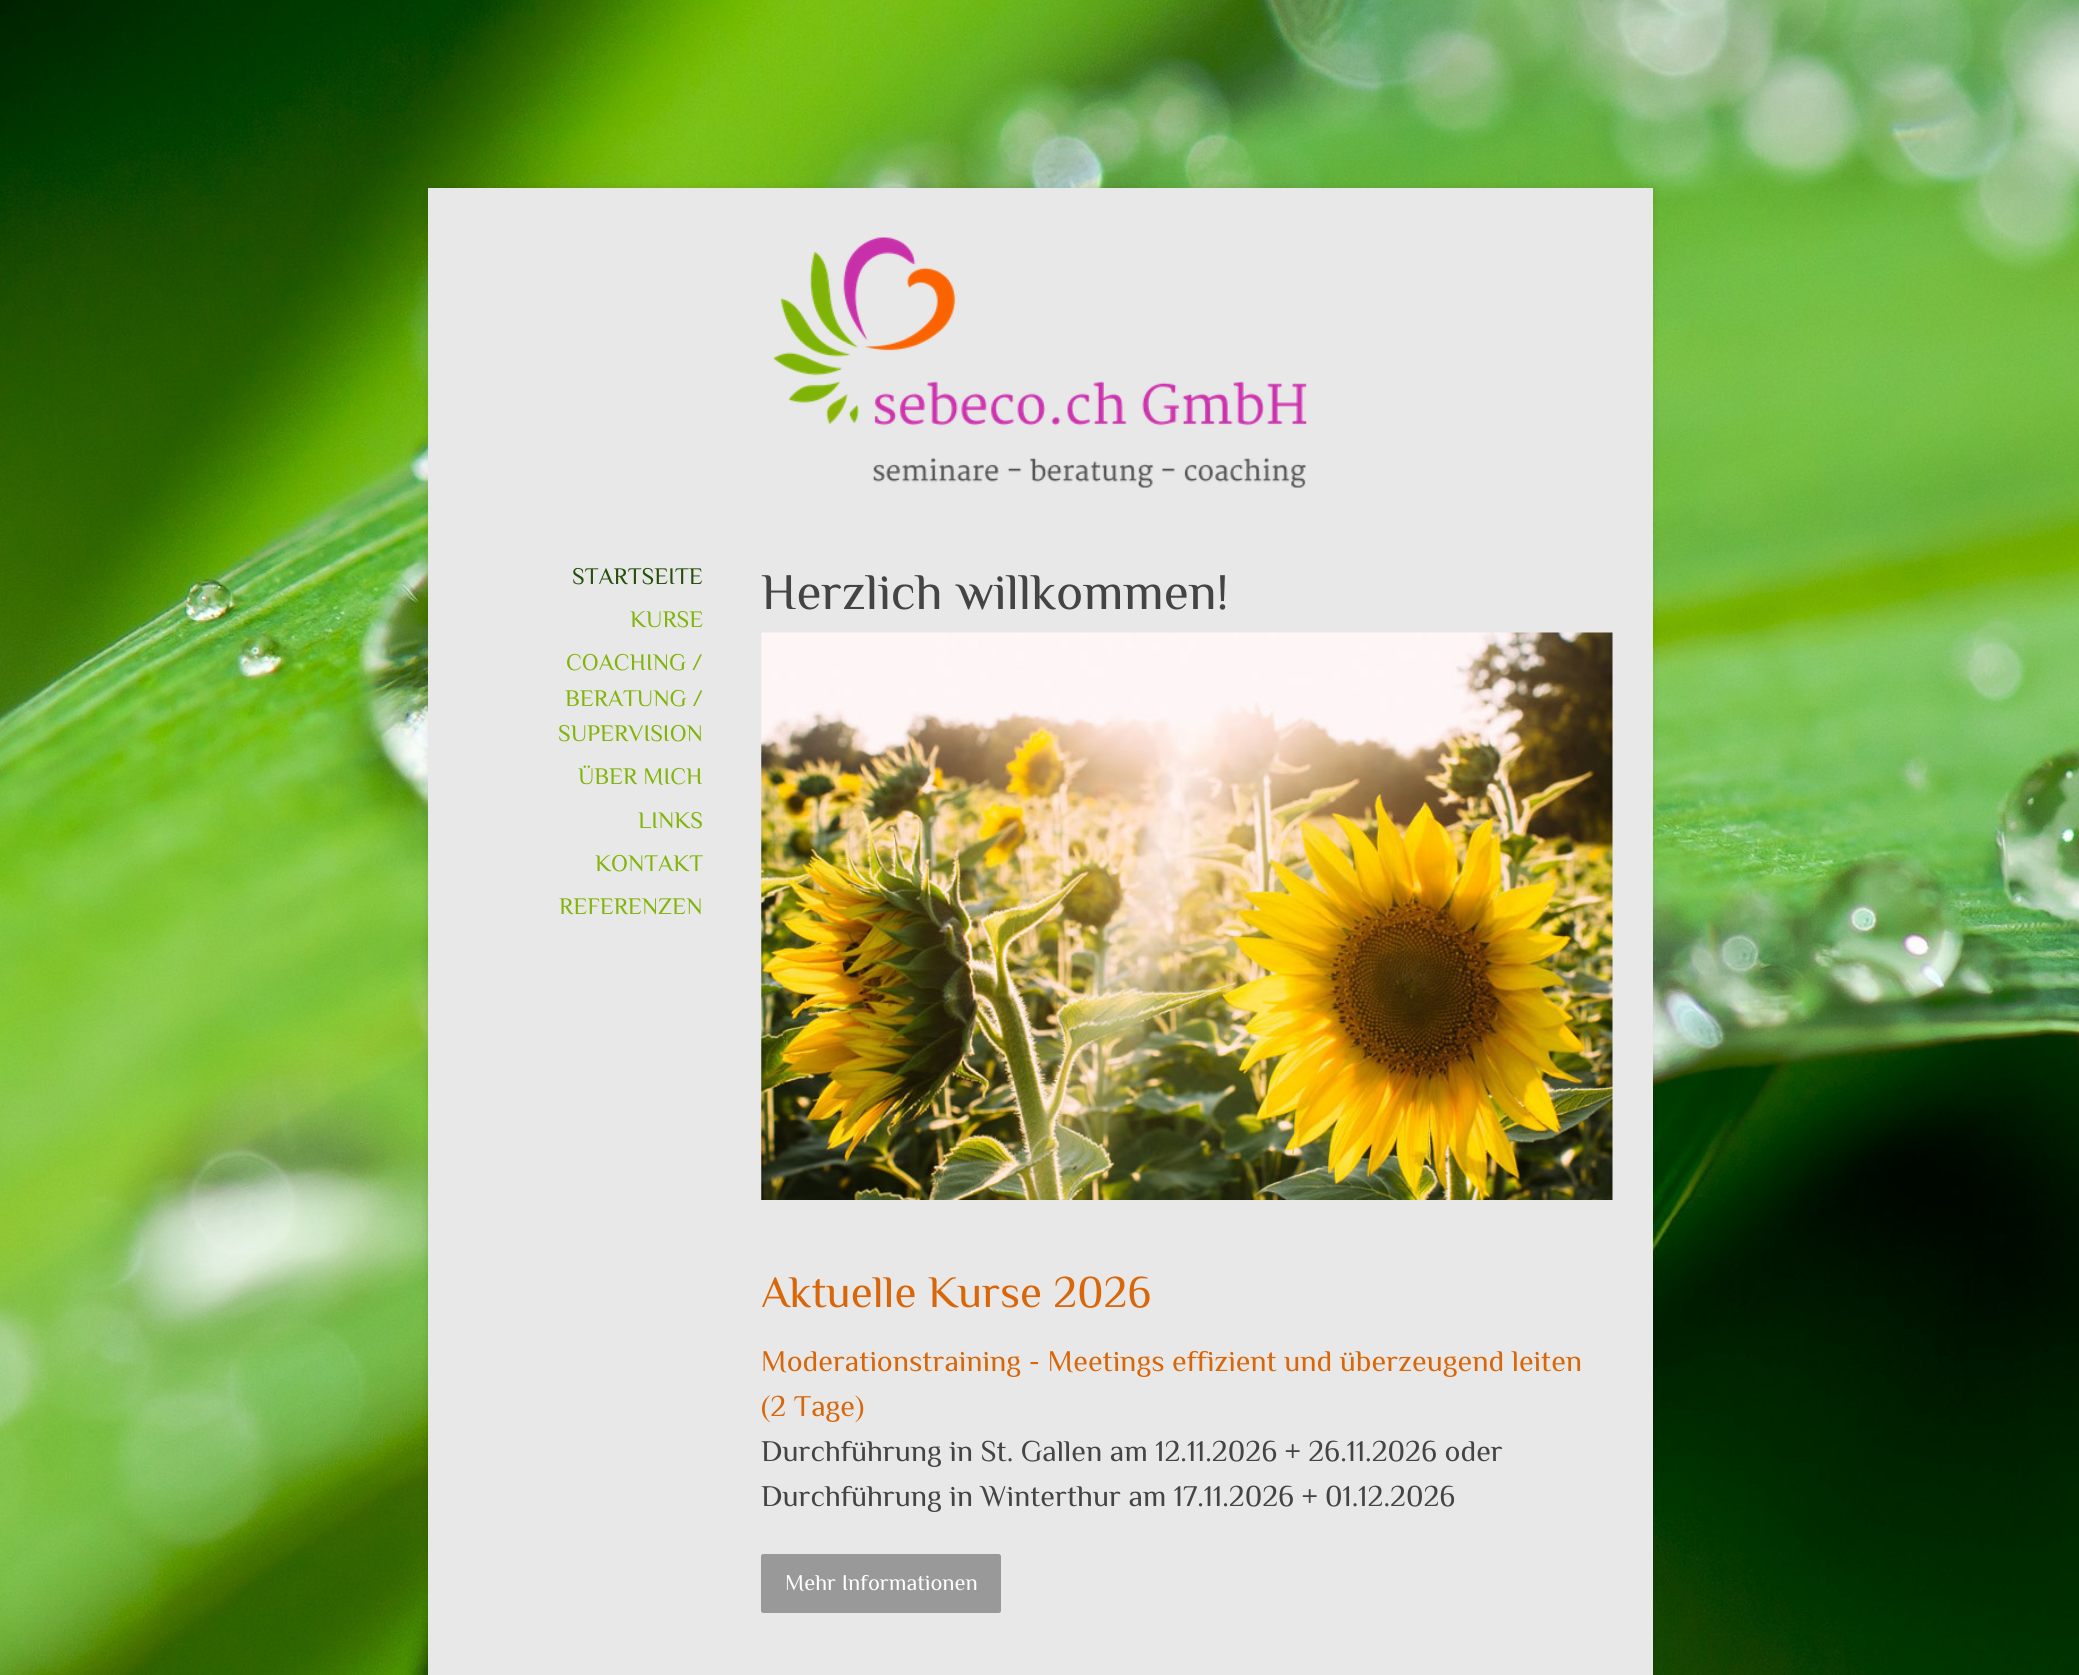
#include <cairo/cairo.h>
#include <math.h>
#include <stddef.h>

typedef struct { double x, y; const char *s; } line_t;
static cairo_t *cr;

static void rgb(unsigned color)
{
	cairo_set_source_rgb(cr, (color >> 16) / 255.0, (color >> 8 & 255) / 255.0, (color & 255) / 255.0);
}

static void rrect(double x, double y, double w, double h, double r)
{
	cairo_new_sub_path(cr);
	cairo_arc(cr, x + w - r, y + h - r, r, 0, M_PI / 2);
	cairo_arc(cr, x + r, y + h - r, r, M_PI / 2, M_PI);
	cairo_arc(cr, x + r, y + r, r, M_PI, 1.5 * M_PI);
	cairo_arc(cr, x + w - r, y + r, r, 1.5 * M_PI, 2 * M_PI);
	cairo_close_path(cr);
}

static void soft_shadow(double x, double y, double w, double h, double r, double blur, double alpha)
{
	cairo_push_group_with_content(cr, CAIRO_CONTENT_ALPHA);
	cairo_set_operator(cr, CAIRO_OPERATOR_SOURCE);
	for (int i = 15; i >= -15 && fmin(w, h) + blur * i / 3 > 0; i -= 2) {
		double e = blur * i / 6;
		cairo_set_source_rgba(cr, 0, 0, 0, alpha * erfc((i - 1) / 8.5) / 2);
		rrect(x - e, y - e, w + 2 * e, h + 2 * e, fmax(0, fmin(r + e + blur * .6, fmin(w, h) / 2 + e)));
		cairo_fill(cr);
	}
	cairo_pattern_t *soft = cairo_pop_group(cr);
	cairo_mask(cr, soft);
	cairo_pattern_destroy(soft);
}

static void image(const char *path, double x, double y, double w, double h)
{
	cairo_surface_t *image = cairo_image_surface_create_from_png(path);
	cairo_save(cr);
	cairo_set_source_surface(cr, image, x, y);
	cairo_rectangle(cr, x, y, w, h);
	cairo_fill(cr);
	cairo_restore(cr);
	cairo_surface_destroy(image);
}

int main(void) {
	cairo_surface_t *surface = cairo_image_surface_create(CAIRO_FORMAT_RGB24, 2079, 1675);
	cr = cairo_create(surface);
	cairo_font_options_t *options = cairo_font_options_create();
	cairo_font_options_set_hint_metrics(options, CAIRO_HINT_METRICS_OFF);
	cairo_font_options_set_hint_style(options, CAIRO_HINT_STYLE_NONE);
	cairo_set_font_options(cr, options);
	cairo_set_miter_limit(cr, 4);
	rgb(0xffffff);
	cairo_paint(cr);
	image("img/1.png", 0, 0, 2079, 1675);
	rgb(0x000000);
	soft_shadow(428, 188, 1225, 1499, 0, 4, 0.1);
	rgb(0xe8e8e8);
	cairo_rectangle(cr, 428, 188, 1225, 1487);
	cairo_fill(cr);
	image("img/2.png", 773, 237, 534, 251);
	image("img/3.png", 761, 632, 852, 568);
	rgb(0x999999);
	rrect(761.5, 1554.5, 239, 58, 2);
	cairo_fill_preserve(cr);
	cairo_set_line_width(cr, 1);
	cairo_stroke(cr);
	cairo_select_font_face(cr, "Philosopher", CAIRO_FONT_SLANT_NORMAL, CAIRO_FONT_WEIGHT_NORMAL);
	cairo_set_font_size(cr, 23.75);
	rgb(0x26500a);
	cairo_move_to(cr, 572, 584);
	cairo_show_text(cr, "STARTSEITE");
	rgb(0x82b40a);
	{
		static const line_t items[] = {
			{630, 627, "KURSE"},
			{566, 670, "COACHING /"},
			{565, 706, "BERATUNG /"},
			{558, 741, "SUPERVISION"},
			{578, 784, "ÜBER MICH"},
			{638, 828, "LINKS"},
			{595, 871, "KONTAKT"},
			{559, 914, "REFERENZEN"},
		};
		for (size_t i = 0; i < sizeof items / sizeof *items; i++) {
			cairo_move_to(cr, items[i].x, items[i].y);
			cairo_show_text(cr, items[i].s);
		}
	}
	cairo_set_font_size(cr, 51.25);
	rgb(0x444444);
	cairo_move_to(cr, 761, 609);
	cairo_show_text(cr, "Herzlich willkommen!");
	cairo_set_font_size(cr, 45);
	rgb(0xd96608);
	cairo_move_to(cr, 761, 1307);
	cairo_show_text(cr, "Aktuelle Kurse 2026");
	cairo_set_font_size(cr, 30);
	cairo_move_to(cr, 761, 1371);
	cairo_show_text(cr, "Moderationstraining - Meetings effizient und überzeugend leiten");
	cairo_move_to(cr, 761, 1416);
	cairo_show_text(cr, "(2 Tage)");
	rgb(0x444444);
	cairo_move_to(cr, 761, 1461);
	cairo_show_text(cr, "Durchführung in St. Gallen am 12.11.2026 + 26.11.2026 oder");
	cairo_move_to(cr, 761, 1506);
	cairo_show_text(cr, "Durchführung in Winterthur am 17.11.2026 + 01.12.2026");
	cairo_set_font_size(cr, 22.5);
	rgb(0xffffff);
	cairo_move_to(cr, 785, 1590);
	cairo_show_text(cr, "Mehr Informationen");
	cairo_surface_write_to_png(surface, "page.png");
	cairo_font_options_destroy(options);
	cairo_destroy(cr);
	cairo_surface_destroy(surface);
	return 0;
}
